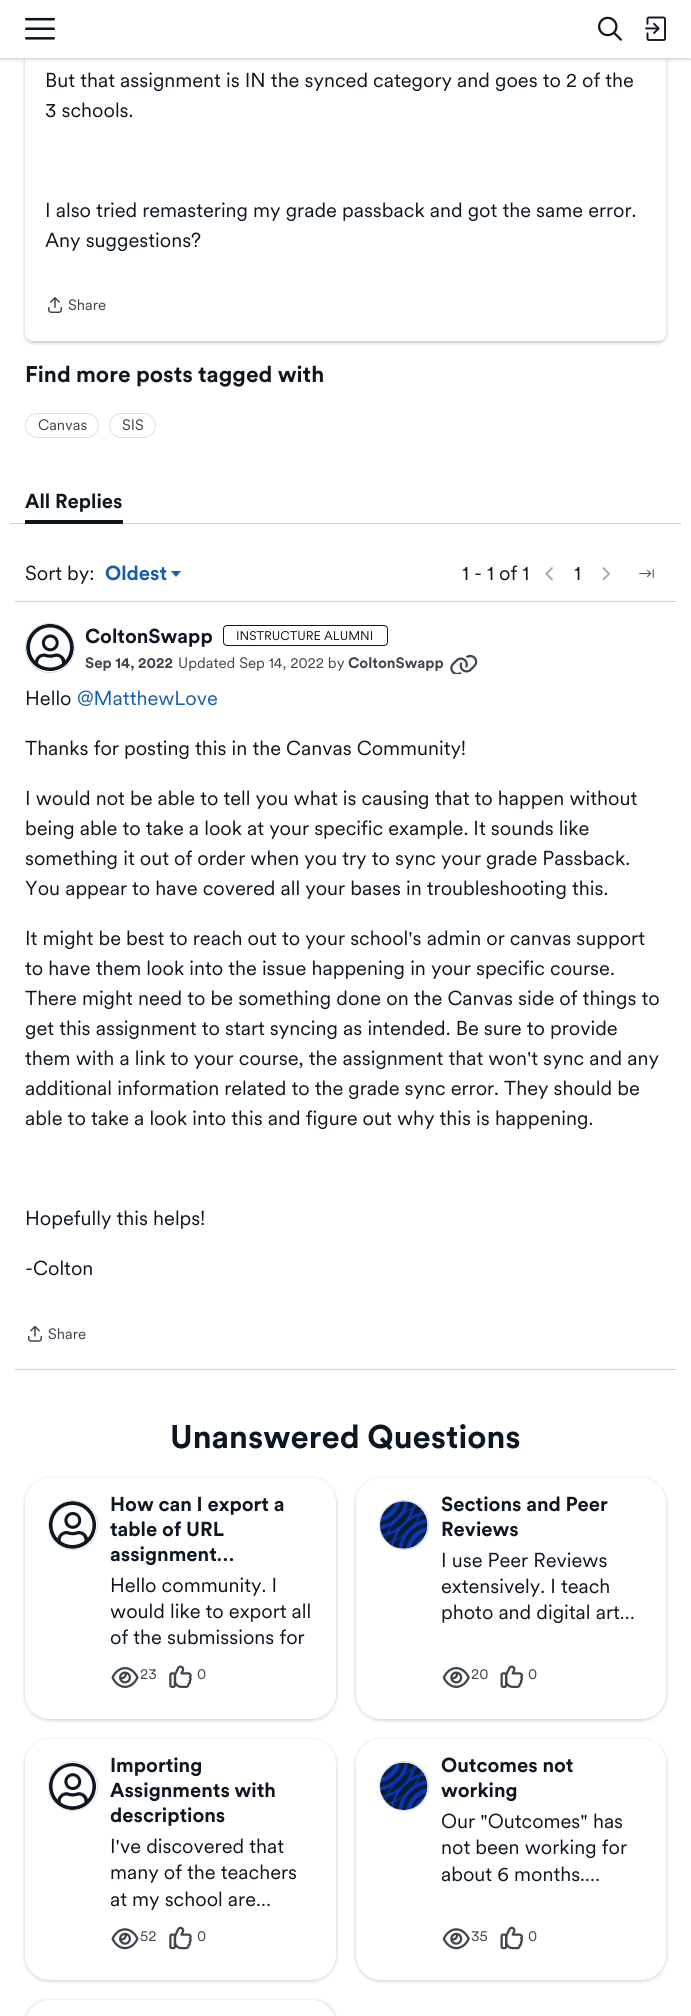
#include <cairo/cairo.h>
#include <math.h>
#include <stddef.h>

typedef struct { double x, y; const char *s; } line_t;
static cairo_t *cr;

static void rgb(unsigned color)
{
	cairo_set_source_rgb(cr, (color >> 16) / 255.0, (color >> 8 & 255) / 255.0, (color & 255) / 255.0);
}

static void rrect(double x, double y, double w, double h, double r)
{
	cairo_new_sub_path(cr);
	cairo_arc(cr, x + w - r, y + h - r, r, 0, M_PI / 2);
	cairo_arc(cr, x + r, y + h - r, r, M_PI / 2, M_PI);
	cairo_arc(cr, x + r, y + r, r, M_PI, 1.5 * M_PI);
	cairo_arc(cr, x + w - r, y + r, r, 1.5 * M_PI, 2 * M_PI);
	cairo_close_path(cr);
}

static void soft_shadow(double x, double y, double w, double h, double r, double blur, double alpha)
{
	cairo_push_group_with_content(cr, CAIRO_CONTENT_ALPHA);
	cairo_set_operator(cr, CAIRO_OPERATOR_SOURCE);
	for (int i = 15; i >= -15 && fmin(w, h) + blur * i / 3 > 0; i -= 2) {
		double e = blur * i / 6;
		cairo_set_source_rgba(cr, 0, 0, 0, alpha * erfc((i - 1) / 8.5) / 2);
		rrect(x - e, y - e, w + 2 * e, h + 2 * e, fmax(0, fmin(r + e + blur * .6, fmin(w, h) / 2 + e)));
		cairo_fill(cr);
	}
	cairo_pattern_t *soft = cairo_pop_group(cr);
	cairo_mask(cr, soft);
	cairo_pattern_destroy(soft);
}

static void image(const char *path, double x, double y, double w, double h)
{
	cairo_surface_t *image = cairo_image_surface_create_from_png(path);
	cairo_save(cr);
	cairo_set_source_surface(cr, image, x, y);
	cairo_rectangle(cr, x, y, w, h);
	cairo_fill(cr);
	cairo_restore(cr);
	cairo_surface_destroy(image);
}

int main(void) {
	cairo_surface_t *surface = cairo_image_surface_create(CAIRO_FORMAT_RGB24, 691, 2016);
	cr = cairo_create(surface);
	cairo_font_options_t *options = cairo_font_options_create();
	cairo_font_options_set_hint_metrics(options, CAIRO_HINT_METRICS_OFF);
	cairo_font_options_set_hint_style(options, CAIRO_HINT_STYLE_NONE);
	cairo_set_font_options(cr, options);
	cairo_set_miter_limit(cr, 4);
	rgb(0xffffff);
	cairo_paint(cr);
	rgb(0x000000);
	soft_shadow(25, -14, 641, 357, 8, 2, 0.22);
	rgb(0xffffff);
	rrect(25, -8, 641, 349, 8);
	cairo_fill(cr);
	rgb(0x000000);
	soft_shadow(0, 1, 691, 58, 0, 2, 0.22);
	rgb(0xffffff);
	cairo_rectangle(cr, 0, 0, 691, 58);
	cairo_fill(cr);
	image("img/1.png", 25, 17, 30, 23);
	image("img/2.png", 598, 16, 24, 25);
	image("img/3.png", 645, 16, 21, 25);
	image("img/4.png", 48, 297, 14, 16);
	rrect(25.5, 413.5, 73, 24, 12);
	rgb(0xdddee0);
	cairo_set_line_width(cr, 1);
	cairo_stroke(cr);
	rrect(109.5, 413.5, 46, 24, 12);
	cairo_stroke(cr);
	rgb(0xcfd1d3);
	cairo_rectangle(cr, 10, 523, 671, 1);
	cairo_fill(cr);
	rgb(0x0e1721);
	cairo_rectangle(cr, 25, 520, 98, 4);
	cairo_fill(cr);
	rgb(0x155dae);
	cairo_new_path(cr);
	cairo_move_to(cr, 171, 571);
	cairo_line_to(cr, 181, 571);
	cairo_line_to(cr, 176, 577);
	cairo_close_path(cr);
	cairo_fill(cr);
	image("img/5.png", 545, 567, 8, 14);
	image("img/6.png", 602, 567, 8, 14);
	image("img/7.png", 639, 569, 15, 9);
	rgb(0xcfd1d3);
	cairo_rectangle(cr, 15, 601, 661, 1);
	cairo_fill(cr);
	cairo_arc(cr, 50, 648, 24.5, 0, 2 * M_PI);
	rgb(0xdbdcde);
	cairo_stroke(cr);
	image("img/8.png", 26, 624, 48, 47);
	rrect(223.5, 625.5, 164, 20, 3.5);
	rgb(0x0e1721);
	cairo_stroke(cr);
	image("img/9.png", 450, 654, 28, 20);
	image("img/10.png", 28, 1325, 14, 17);
	rgb(0xcfd1d3);
	cairo_rectangle(cr, 15, 1369, 661, 1);
	cairo_fill(cr);
	rgb(0x000000);
	soft_shadow(25, 1479, 311, 241, 25, 2, 0.22);
	rgb(0xffffff);
	rrect(25, 1478, 311, 241, 25);
	cairo_fill(cr);
	cairo_arc(cr, 73, 1525, 24.5, 0, 2 * M_PI);
	rgb(0xdbdcde);
	cairo_stroke(cr);
	image("img/11.png", 49, 1501, 47, 48);
	image("img/12.png", 111, 1667, 28, 21);
	image("img/13.png", 169, 1665, 23, 23);
	rgb(0x000000);
	soft_shadow(356, 1479, 310, 241, 25, 2, 0.22);
	rgb(0xffffff);
	rrect(356, 1478, 310, 241, 25);
	cairo_fill(cr);
	cairo_arc(cr, 404, 1525, 24.5, 0, 2 * M_PI);
	rgb(0xdbdcde);
	cairo_stroke(cr);
	image("img/14.png", 380, 1501, 48, 48);
	image("img/15.png", 442, 1667, 28, 21);
	image("img/16.png", 500, 1665, 23, 23);
	rgb(0x000000);
	soft_shadow(25, 1740, 311, 241, 25, 2, 0.22);
	rgb(0xffffff);
	rrect(25, 1739, 311, 241, 25);
	cairo_fill(cr);
	cairo_arc(cr, 73, 1786, 24.5, 0, 2 * M_PI);
	rgb(0xdbdcde);
	cairo_stroke(cr);
	image("img/17.png", 49, 1763, 47, 47);
	image("img/18.png", 111, 1928, 28, 22);
	image("img/19.png", 169, 1926, 23, 24);
	rgb(0x000000);
	soft_shadow(356, 1740, 310, 241, 25, 2, 0.22);
	rgb(0xffffff);
	rrect(356, 1739, 310, 241, 25);
	cairo_fill(cr);
	cairo_arc(cr, 404, 1786, 24.5, 0, 2 * M_PI);
	rgb(0xdbdcde);
	cairo_stroke(cr);
	image("img/20.png", 380, 1762, 48, 48);
	image("img/21.png", 442, 1928, 28, 22);
	image("img/22.png", 500, 1926, 23, 24);
	rgb(0x000000);
	soft_shadow(25, 2001, 311, 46, 25, 2, 0.22);
	rgb(0xffffff);
	rrect(25, 2000, 311, 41, 25);
	cairo_fill(cr);
	cairo_select_font_face(cr, "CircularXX", CAIRO_FONT_SLANT_NORMAL, CAIRO_FONT_WEIGHT_NORMAL);
	cairo_set_font_size(cr, 20);
	rgb(0x0e1721);
	{
		static const line_t items[] = {
			{45, 87, "But that assignment is IN the synced category and goes to 2 of the"},
			{45, 117, "3 schools."},
			{45, 217, "I also tried remastering my grade passback and got the same error."},
			{45, 247, "Any suggestions?"},
		};
		for (size_t i = 0; i < sizeof items / sizeof *items; i++) {
			cairo_move_to(cr, items[i].x, items[i].y);
			cairo_show_text(cr, items[i].s);
		}
	}
	cairo_set_font_size(cr, 15);
	rgb(0x3e454d);
	cairo_move_to(cr, 68, 310);
	cairo_show_text(cr, "Share");
	cairo_select_font_face(cr, "CircularXX", CAIRO_FONT_SLANT_NORMAL, CAIRO_FONT_WEIGHT_BOLD);
	cairo_set_font_size(cr, 22.5);
	rgb(0x0e1721);
	cairo_move_to(cr, 25, 382);
	cairo_show_text(cr, "Find more posts tagged with");
	cairo_select_font_face(cr, "CircularXX", CAIRO_FONT_SLANT_NORMAL, CAIRO_FONT_WEIGHT_NORMAL);
	cairo_set_font_size(cr, 15);
	rgb(0x3e454d);
	cairo_move_to(cr, 38, 430);
	cairo_show_text(cr, "Canvas");
	cairo_move_to(cr, 122, 430);
	cairo_show_text(cr, "SIS");
	cairo_select_font_face(cr, "CircularXX", CAIRO_FONT_SLANT_NORMAL, CAIRO_FONT_WEIGHT_BOLD);
	cairo_set_font_size(cr, 20);
	rgb(0x0e1721);
	cairo_move_to(cr, 25, 508);
	cairo_show_text(cr, "All Replies");
	cairo_select_font_face(cr, "CircularXX", CAIRO_FONT_SLANT_NORMAL, CAIRO_FONT_WEIGHT_NORMAL);
	cairo_move_to(cr, 25, 580);
	cairo_show_text(cr, "Sort by:");
	cairo_select_font_face(cr, "CircularXX", CAIRO_FONT_SLANT_NORMAL, CAIRO_FONT_WEIGHT_BOLD);
	rgb(0x155dae);
	cairo_move_to(cr, 105, 580);
	cairo_show_text(cr, "Oldest");
	cairo_select_font_face(cr, "CircularXX", CAIRO_FONT_SLANT_NORMAL, CAIRO_FONT_WEIGHT_NORMAL);
	rgb(0x0e1721);
	cairo_move_to(cr, 462, 580);
	cairo_show_text(cr, "1 - 1 of 1");
	cairo_move_to(cr, 574, 580);
	cairo_show_text(cr, "1");
	cairo_select_font_face(cr, "CircularXX", CAIRO_FONT_SLANT_NORMAL, CAIRO_FONT_WEIGHT_BOLD);
	cairo_move_to(cr, 85, 643);
	cairo_show_text(cr, "ColtonSwapp");
	cairo_select_font_face(cr, "CircularXX", CAIRO_FONT_SLANT_NORMAL, CAIRO_FONT_WEIGHT_NORMAL);
	cairo_set_font_size(cr, 12.5);
	cairo_move_to(cr, 236, 640);
	cairo_show_text(cr, "INSTRUCTURE ALUMNI");
	cairo_select_font_face(cr, "CircularXX", CAIRO_FONT_SLANT_NORMAL, CAIRO_FONT_WEIGHT_BOLD);
	cairo_set_font_size(cr, 15);
	rgb(0x3e454d);
	cairo_move_to(cr, 85, 668);
	cairo_show_text(cr, "Sep 14, 2022");
	cairo_select_font_face(cr, "CircularXX", CAIRO_FONT_SLANT_NORMAL, CAIRO_FONT_WEIGHT_NORMAL);
	cairo_move_to(cr, 178, 668);
	cairo_show_text(cr, "Updated Sep 14, 2022 by");
	cairo_select_font_face(cr, "CircularXX", CAIRO_FONT_SLANT_NORMAL, CAIRO_FONT_WEIGHT_BOLD);
	cairo_move_to(cr, 348, 668);
	cairo_show_text(cr, "ColtonSwapp");
	cairo_select_font_face(cr, "CircularXX", CAIRO_FONT_SLANT_NORMAL, CAIRO_FONT_WEIGHT_NORMAL);
	cairo_set_font_size(cr, 20);
	rgb(0x0e1721);
	cairo_move_to(cr, 25, 705);
	cairo_show_text(cr, "Hello");
	rgb(0x155dae);
	cairo_move_to(cr, 77, 705);
	cairo_show_text(cr, "@MatthewLove");
	rgb(0x0e1721);
	{
		static const line_t items[] = {
			{25, 755, "Thanks for posting this in the Canvas Community!"},
			{25, 805, "I would not be able to tell you what is causing that to happen without"},
			{25, 835, "being able to take a look at your specific example. It sounds like"},
			{25, 865, "something it out of order when you try to sync your grade Passback."},
			{25, 895, "You appear to have covered all your bases in troubleshooting this."},
			{25, 945, "It might be best to reach out to your school's admin or canvas support"},
			{25, 975, "to have them look into the issue happening in your specific course."},
			{25, 1005, "There might need to be something done on the Canvas side of things to"},
			{25, 1035, "get this assignment to start syncing as intended. Be sure to provide"},
			{25, 1065, "them with a link to your course, the assignment that won't sync and any"},
			{25, 1095, "additional information related to the grade sync error. They should be"},
			{25, 1125, "able to take a look into this and figure out why this is happening."},
			{25, 1225, "Hopefully this helps!"},
			{25, 1275, "-Colton"},
		};
		for (size_t i = 0; i < sizeof items / sizeof *items; i++) {
			cairo_move_to(cr, items[i].x, items[i].y);
			cairo_show_text(cr, items[i].s);
		}
	}
	cairo_set_font_size(cr, 15);
	rgb(0x3e454d);
	cairo_move_to(cr, 48, 1339);
	cairo_show_text(cr, "Share");
	cairo_select_font_face(cr, "CircularXX", CAIRO_FONT_SLANT_NORMAL, CAIRO_FONT_WEIGHT_BOLD);
	cairo_set_font_size(cr, 32.5);
	rgb(0x0e1721);
	cairo_move_to(cr, 170, 1448);
	cairo_show_text(cr, "Unanswered Questions");
	cairo_set_font_size(cr, 20);
	{
		static const line_t items[] = {
			{110, 1511, "How can I export a"},
			{110, 1536, "table of URL"},
			{110, 1561, "assignment…"},
		};
		for (size_t i = 0; i < sizeof items / sizeof *items; i++) {
			cairo_move_to(cr, items[i].x, items[i].y);
			cairo_show_text(cr, items[i].s);
		}
	}
	cairo_select_font_face(cr, "CircularXX", CAIRO_FONT_SLANT_NORMAL, CAIRO_FONT_WEIGHT_NORMAL);
	{
		static const line_t items[] = {
			{110, 1592, "Hello community. I"},
			{110, 1618, "would like to export all"},
			{110, 1644, "of the submissions for"},
		};
		for (size_t i = 0; i < sizeof items / sizeof *items; i++) {
			cairo_move_to(cr, items[i].x, items[i].y);
			cairo_show_text(cr, items[i].s);
		}
	}
	cairo_set_font_size(cr, 15);
	rgb(0x3e454d);
	cairo_move_to(cr, 140, 1679);
	cairo_show_text(cr, "23");
	cairo_move_to(cr, 197, 1679);
	cairo_show_text(cr, "0");
	cairo_select_font_face(cr, "CircularXX", CAIRO_FONT_SLANT_NORMAL, CAIRO_FONT_WEIGHT_BOLD);
	cairo_set_font_size(cr, 20);
	rgb(0x0e1721);
	cairo_move_to(cr, 441, 1511);
	cairo_show_text(cr, "Sections and Peer");
	cairo_move_to(cr, 441, 1536);
	cairo_show_text(cr, "Reviews");
	cairo_select_font_face(cr, "CircularXX", CAIRO_FONT_SLANT_NORMAL, CAIRO_FONT_WEIGHT_NORMAL);
	{
		static const line_t items[] = {
			{441, 1567, "I use Peer Reviews"},
			{441, 1593, "extensively. I teach"},
			{441, 1619, "photo and digital art…"},
		};
		for (size_t i = 0; i < sizeof items / sizeof *items; i++) {
			cairo_move_to(cr, items[i].x, items[i].y);
			cairo_show_text(cr, items[i].s);
		}
	}
	cairo_set_font_size(cr, 15);
	rgb(0x3e454d);
	cairo_move_to(cr, 471, 1679);
	cairo_show_text(cr, "20");
	cairo_move_to(cr, 528, 1679);
	cairo_show_text(cr, "0");
	cairo_select_font_face(cr, "CircularXX", CAIRO_FONT_SLANT_NORMAL, CAIRO_FONT_WEIGHT_BOLD);
	cairo_set_font_size(cr, 20);
	rgb(0x0e1721);
	{
		static const line_t items[] = {
			{110, 1772, "Importing"},
			{110, 1797, "Assignments with"},
			{110, 1822, "descriptions"},
		};
		for (size_t i = 0; i < sizeof items / sizeof *items; i++) {
			cairo_move_to(cr, items[i].x, items[i].y);
			cairo_show_text(cr, items[i].s);
		}
	}
	cairo_select_font_face(cr, "CircularXX", CAIRO_FONT_SLANT_NORMAL, CAIRO_FONT_WEIGHT_NORMAL);
	{
		static const line_t items[] = {
			{110, 1853, "I've discovered that"},
			{110, 1879, "many of the teachers"},
			{110, 1906, "at my school are…"},
		};
		for (size_t i = 0; i < sizeof items / sizeof *items; i++) {
			cairo_move_to(cr, items[i].x, items[i].y);
			cairo_show_text(cr, items[i].s);
		}
	}
	cairo_set_font_size(cr, 15);
	rgb(0x3e454d);
	cairo_move_to(cr, 140, 1941);
	cairo_show_text(cr, "52");
	cairo_move_to(cr, 197, 1941);
	cairo_show_text(cr, "0");
	cairo_select_font_face(cr, "CircularXX", CAIRO_FONT_SLANT_NORMAL, CAIRO_FONT_WEIGHT_BOLD);
	cairo_set_font_size(cr, 20);
	rgb(0x0e1721);
	cairo_move_to(cr, 441, 1772);
	cairo_show_text(cr, "Outcomes not");
	cairo_move_to(cr, 441, 1797);
	cairo_show_text(cr, "working");
	cairo_select_font_face(cr, "CircularXX", CAIRO_FONT_SLANT_NORMAL, CAIRO_FONT_WEIGHT_NORMAL);
	{
		static const line_t items[] = {
			{441, 1828, "Our \"Outcomes\" has"},
			{441, 1854, "not been working for"},
			{441, 1881, "about 6 months.…"},
		};
		for (size_t i = 0; i < sizeof items / sizeof *items; i++) {
			cairo_move_to(cr, items[i].x, items[i].y);
			cairo_show_text(cr, items[i].s);
		}
	}
	cairo_set_font_size(cr, 15);
	rgb(0x3e454d);
	cairo_move_to(cr, 471, 1941);
	cairo_show_text(cr, "35");
	cairo_move_to(cr, 528, 1941);
	cairo_show_text(cr, "0");
	cairo_surface_write_to_png(surface, "page.png");
	cairo_font_options_destroy(options);
	cairo_destroy(cr);
	cairo_surface_destroy(surface);
	return 0;
}
